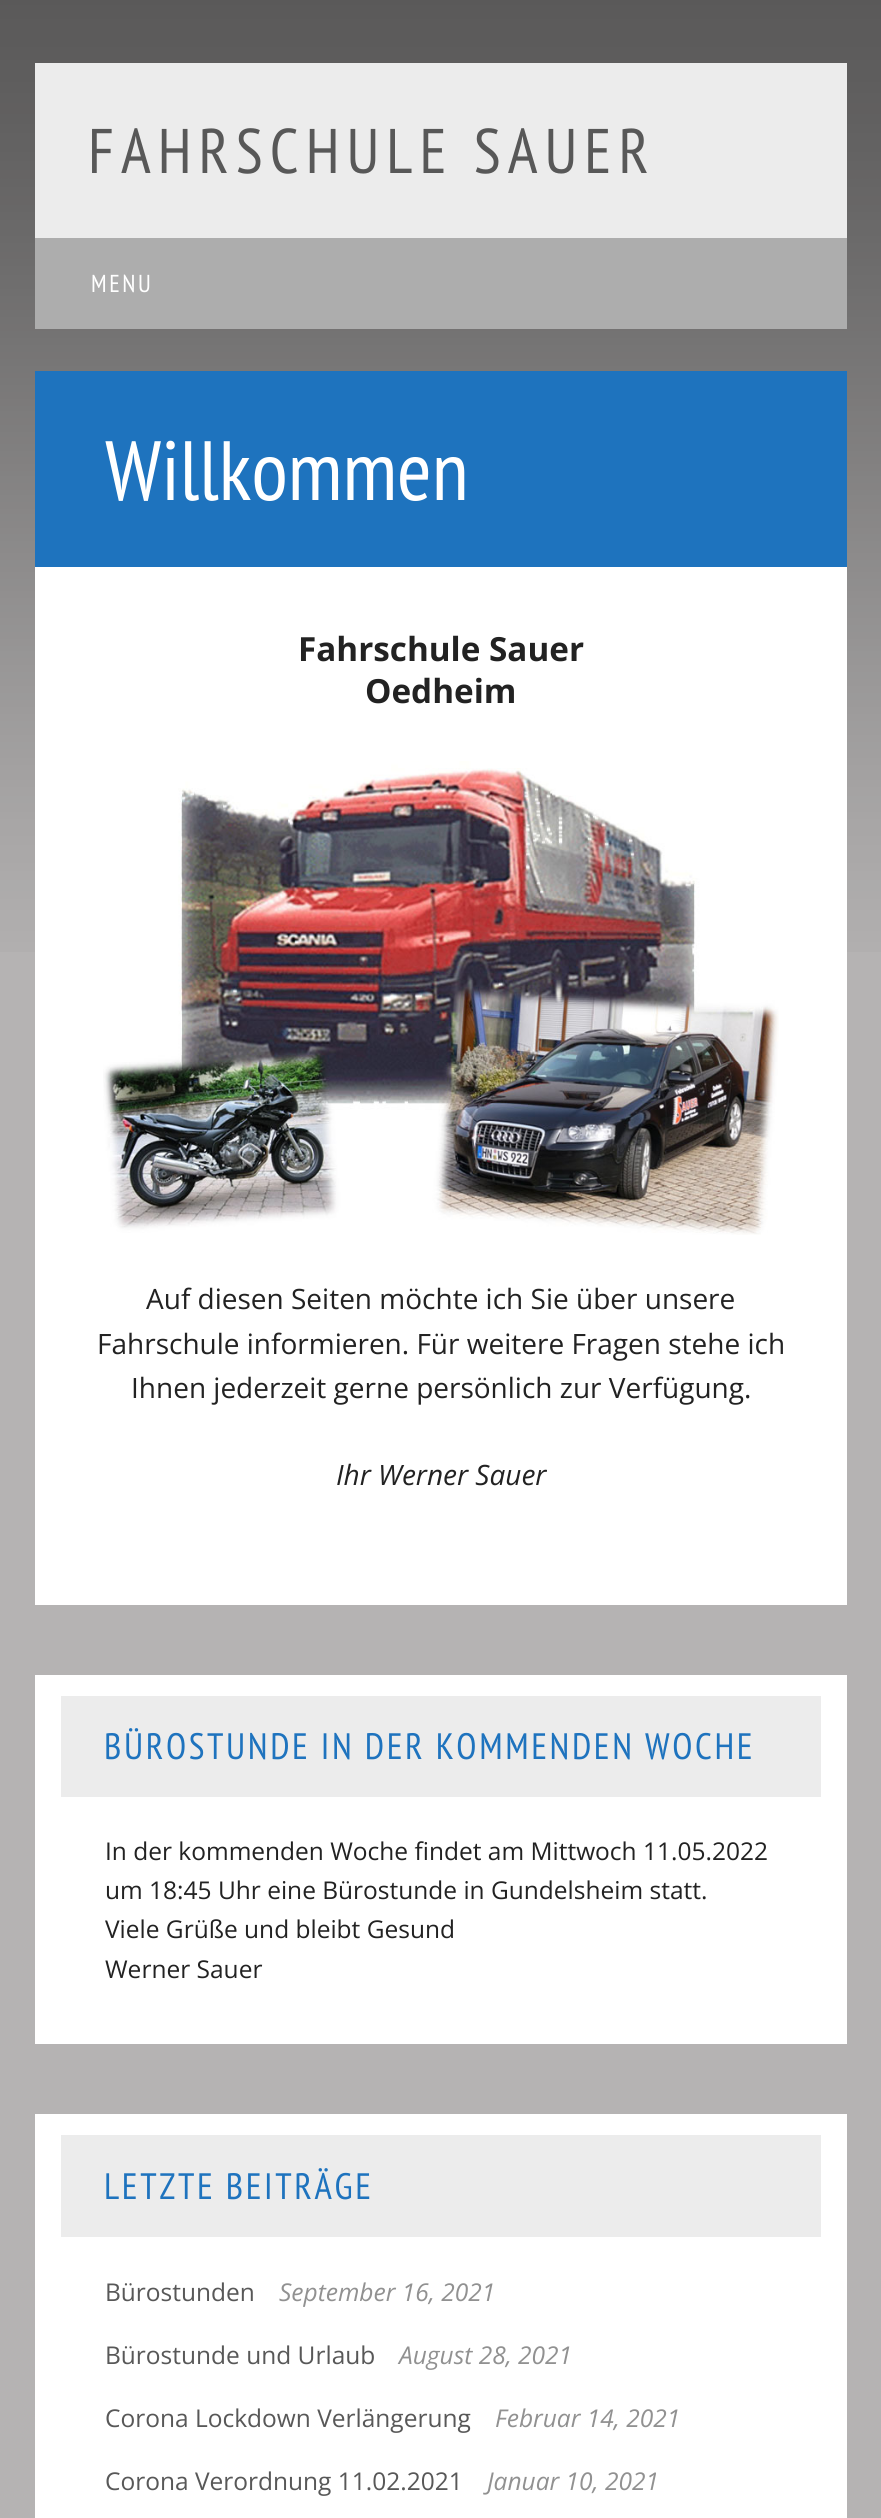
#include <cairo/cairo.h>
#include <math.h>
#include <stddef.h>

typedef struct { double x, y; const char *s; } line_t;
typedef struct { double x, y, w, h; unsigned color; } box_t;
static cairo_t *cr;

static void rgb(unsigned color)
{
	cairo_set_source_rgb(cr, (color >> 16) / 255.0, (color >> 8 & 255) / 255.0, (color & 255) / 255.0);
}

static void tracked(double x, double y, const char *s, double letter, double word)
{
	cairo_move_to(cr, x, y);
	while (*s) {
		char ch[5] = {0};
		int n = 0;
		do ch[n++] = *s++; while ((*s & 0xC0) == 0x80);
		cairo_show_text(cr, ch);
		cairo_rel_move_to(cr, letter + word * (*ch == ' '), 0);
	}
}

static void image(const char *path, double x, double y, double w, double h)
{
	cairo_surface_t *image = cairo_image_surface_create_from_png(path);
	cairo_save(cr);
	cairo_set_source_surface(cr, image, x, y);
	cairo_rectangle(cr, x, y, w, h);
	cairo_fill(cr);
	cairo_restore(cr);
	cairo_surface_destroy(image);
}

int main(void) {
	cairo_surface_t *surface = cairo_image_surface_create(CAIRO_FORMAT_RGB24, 881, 2518);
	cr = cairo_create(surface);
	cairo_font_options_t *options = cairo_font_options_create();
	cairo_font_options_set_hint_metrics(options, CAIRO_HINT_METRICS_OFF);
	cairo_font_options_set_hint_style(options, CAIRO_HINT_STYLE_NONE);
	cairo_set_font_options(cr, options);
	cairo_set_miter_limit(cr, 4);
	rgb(0xb5b3b3);
	cairo_paint(cr);
	image("img/1.png", 0, 0, 881, 952);
	{
		static const box_t items[] = {
			{35, 63, 812, 175, 0xececec},
			{35, 238, 812, 91, 0xadadad},
			{35, 567, 812, 1038, 0xffffff},
			{35, 371, 812, 196, 0x1e73be},
		};
		for (size_t i = 0; i < sizeof items / sizeof *items; i++) {
			rgb(items[i].color);
			cairo_rectangle(cr, items[i].x, items[i].y, items[i].w, items[i].h);
			cairo_fill(cr);
		}
	}
	image("img/2.png", 103, 761, 676, 474);
	{
		static const box_t items[] = {
			{35, 1675, 812, 369, 0xffffff},
			{61, 1696, 760, 101, 0xececec},
			{35, 2114, 812, 404, 0xffffff},
			{61, 2135, 760, 102, 0xececec},
		};
		for (size_t i = 0; i < sizeof items / sizeof *items; i++) {
			rgb(items[i].color);
			cairo_rectangle(cr, items[i].x, items[i].y, items[i].w, items[i].h);
			cairo_fill(cr);
		}
	}
	cairo_select_font_face(cr, "PT Sans Narrow", CAIRO_FONT_SLANT_NORMAL, CAIRO_FONT_WEIGHT_NORMAL);
	cairo_set_font_size(cr, 63);
	rgb(0x585858);
	tracked(88, 173, "FAHRSCHULE SAUER", 7, 0);
	cairo_set_font_size(cr, 24.5);
	rgb(0xffffff);
	tracked(91, 292, "MENU", 2.6, 0);
	cairo_set_font_size(cr, 84);
	cairo_move_to(cr, 105, 500);
	cairo_show_text(cr, "Willkommen");
	cairo_select_font_face(cr, "Open Sans", CAIRO_FONT_SLANT_NORMAL, CAIRO_FONT_WEIGHT_BOLD);
	cairo_set_font_size(cr, 33.25);
	rgb(0x222222);
	cairo_move_to(cr, 298, 661);
	cairo_show_text(cr, "Fahrschule Sauer");
	cairo_move_to(cr, 365, 703);
	cairo_show_text(cr, "Oedheim");
	cairo_select_font_face(cr, "Open Sans", CAIRO_FONT_SLANT_NORMAL, CAIRO_FONT_WEIGHT_NORMAL);
	cairo_set_font_size(cr, 28);
	{
		static const line_t items[] = {
			{146, 1309, "Auf diesen Seiten möchte ich Sie über unsere"},
			{97, 1354, "Fahrschule informieren. Für weitere Fragen stehe ich"},
			{131, 1398, "Ihnen jederzeit gerne persönlich zur Verfügung."},
		};
		for (size_t i = 0; i < sizeof items / sizeof *items; i++) {
			cairo_move_to(cr, items[i].x, items[i].y);
			cairo_show_text(cr, items[i].s);
		}
	}
	cairo_select_font_face(cr, "Open Sans", CAIRO_FONT_SLANT_ITALIC, CAIRO_FONT_WEIGHT_NORMAL);
	cairo_move_to(cr, 336, 1485);
	cairo_show_text(cr, "Ihr Werner Sauer");
	cairo_select_font_face(cr, "PT Sans Narrow", CAIRO_FONT_SLANT_NORMAL, CAIRO_FONT_WEIGHT_NORMAL);
	cairo_set_font_size(cr, 36.75);
	rgb(0x1e73be);
	tracked(104, 1759, "BÜROSTUNDE IN DER KOMMENDEN WOCHE", 2.6, 0);
	cairo_select_font_face(cr, "Open Sans", CAIRO_FONT_SLANT_NORMAL, CAIRO_FONT_WEIGHT_NORMAL);
	cairo_set_font_size(cr, 24.5);
	rgb(0x222222);
	{
		static const line_t items[] = {
			{105, 1860, "In der kommenden Woche findet am Mittwoch 11.05.2022"},
			{105, 1899, "um 18:45 Uhr eine Bürostunde in Gundelsheim statt."},
			{105, 1938, "Viele Grüße und bleibt Gesund"},
			{105, 1978, "Werner Sauer"},
		};
		for (size_t i = 0; i < sizeof items / sizeof *items; i++) {
			cairo_move_to(cr, items[i].x, items[i].y);
			cairo_show_text(cr, items[i].s);
		}
	}
	cairo_select_font_face(cr, "PT Sans Narrow", CAIRO_FONT_SLANT_NORMAL, CAIRO_FONT_WEIGHT_NORMAL);
	cairo_set_font_size(cr, 36.75);
	rgb(0x1e73be);
	tracked(104, 2199, "LETZTE BEITRÄGE", 2.6, 0);
	cairo_select_font_face(cr, "Open Sans", CAIRO_FONT_SLANT_NORMAL, CAIRO_FONT_WEIGHT_NORMAL);
	cairo_set_font_size(cr, 24.5);
	rgb(0x585858);
	cairo_move_to(cr, 105, 2301);
	cairo_show_text(cr, "Bürostunden");
	cairo_select_font_face(cr, "Open Sans", CAIRO_FONT_SLANT_ITALIC, CAIRO_FONT_WEIGHT_NORMAL);
	rgb(0x919191);
	cairo_move_to(cr, 279, 2301);
	cairo_show_text(cr, "September 16, 2021");
	cairo_select_font_face(cr, "Open Sans", CAIRO_FONT_SLANT_NORMAL, CAIRO_FONT_WEIGHT_NORMAL);
	rgb(0x585858);
	cairo_move_to(cr, 105, 2364);
	cairo_show_text(cr, "Bürostunde und Urlaub");
	cairo_select_font_face(cr, "Open Sans", CAIRO_FONT_SLANT_ITALIC, CAIRO_FONT_WEIGHT_NORMAL);
	rgb(0x919191);
	cairo_move_to(cr, 399, 2364);
	cairo_show_text(cr, "August 28, 2021");
	cairo_select_font_face(cr, "Open Sans", CAIRO_FONT_SLANT_NORMAL, CAIRO_FONT_WEIGHT_NORMAL);
	rgb(0x585858);
	cairo_move_to(cr, 105, 2427);
	cairo_show_text(cr, "Corona Lockdown Verlängerung");
	cairo_select_font_face(cr, "Open Sans", CAIRO_FONT_SLANT_ITALIC, CAIRO_FONT_WEIGHT_NORMAL);
	rgb(0x919191);
	cairo_move_to(cr, 495, 2427);
	cairo_show_text(cr, "Februar 14, 2021");
	cairo_select_font_face(cr, "Open Sans", CAIRO_FONT_SLANT_NORMAL, CAIRO_FONT_WEIGHT_NORMAL);
	rgb(0x585858);
	cairo_move_to(cr, 105, 2490);
	cairo_show_text(cr, "Corona Verordnung 11.02.2021");
	cairo_select_font_face(cr, "Open Sans", CAIRO_FONT_SLANT_ITALIC, CAIRO_FONT_WEIGHT_NORMAL);
	rgb(0x919191);
	cairo_move_to(cr, 487, 2490);
	cairo_show_text(cr, "Januar 10, 2021");
	cairo_surface_write_to_png(surface, "page.png");
	cairo_font_options_destroy(options);
	cairo_destroy(cr);
	cairo_surface_destroy(surface);
	return 0;
}
